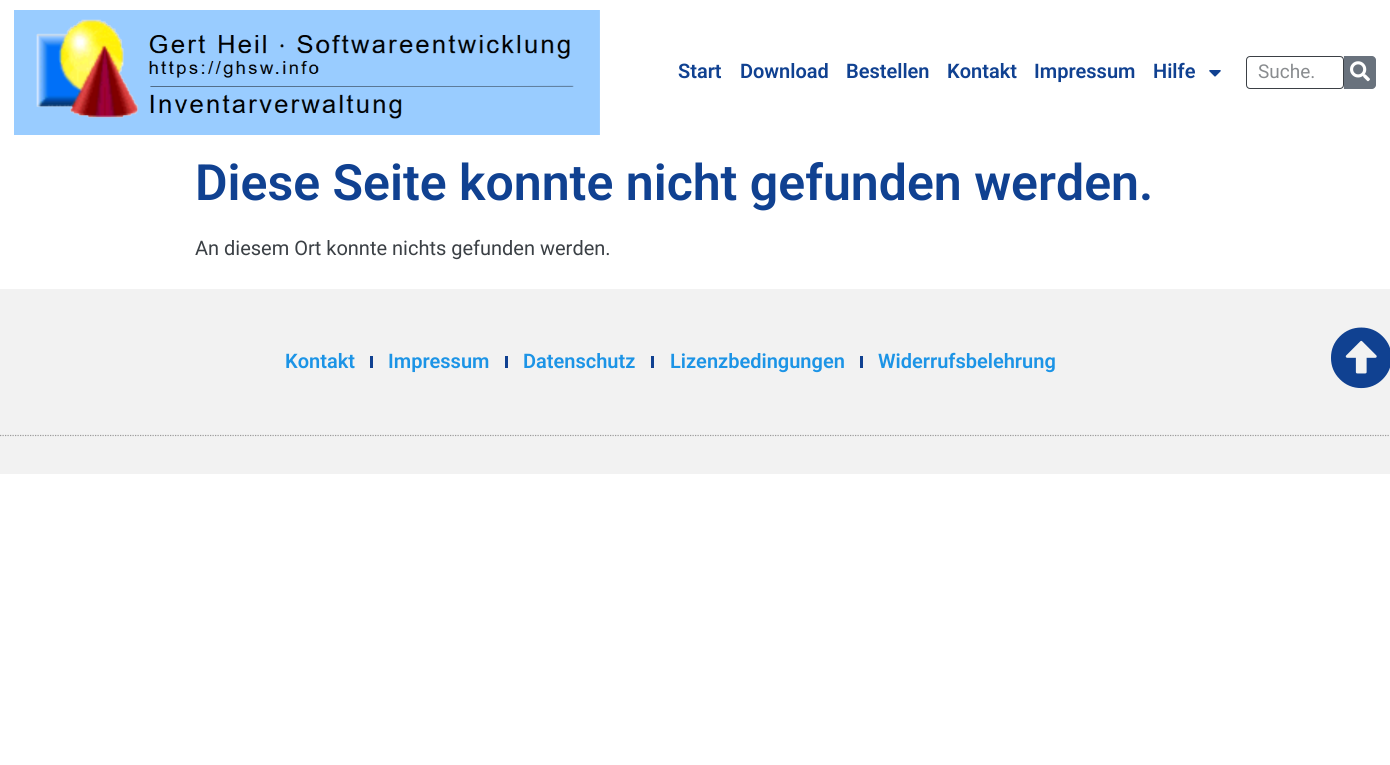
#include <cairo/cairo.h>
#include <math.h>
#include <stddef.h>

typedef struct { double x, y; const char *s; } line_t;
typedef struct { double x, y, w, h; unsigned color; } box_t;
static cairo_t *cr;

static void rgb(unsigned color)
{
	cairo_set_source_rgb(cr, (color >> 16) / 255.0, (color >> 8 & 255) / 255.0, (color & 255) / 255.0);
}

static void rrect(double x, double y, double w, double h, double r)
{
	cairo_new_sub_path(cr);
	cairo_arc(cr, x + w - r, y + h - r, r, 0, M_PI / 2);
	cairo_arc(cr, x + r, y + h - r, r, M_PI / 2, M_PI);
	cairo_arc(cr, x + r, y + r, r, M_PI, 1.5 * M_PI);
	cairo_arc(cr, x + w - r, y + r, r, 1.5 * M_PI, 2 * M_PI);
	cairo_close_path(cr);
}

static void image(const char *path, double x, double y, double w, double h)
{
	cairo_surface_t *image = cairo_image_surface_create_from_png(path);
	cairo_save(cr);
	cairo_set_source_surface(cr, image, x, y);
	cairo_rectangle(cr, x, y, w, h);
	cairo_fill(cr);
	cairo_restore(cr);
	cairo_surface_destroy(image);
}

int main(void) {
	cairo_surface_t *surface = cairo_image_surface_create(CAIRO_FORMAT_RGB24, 1390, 765);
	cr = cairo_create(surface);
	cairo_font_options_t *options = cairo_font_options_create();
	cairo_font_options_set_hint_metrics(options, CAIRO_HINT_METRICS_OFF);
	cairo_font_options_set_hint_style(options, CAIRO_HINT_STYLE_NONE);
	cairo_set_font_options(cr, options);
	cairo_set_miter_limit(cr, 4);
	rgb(0xffffff);
	cairo_paint(cr);
	image("img/1.png", 14, 10, 586, 125);
	image("img/2.png", 1209, 70, 12, 7);
	rgb(0xf1f2f3);
	rrect(1246, 56, 130, 33, 4);
	cairo_fill(cr);
	rgb(0xffffff);
	rrect(1246.5, 56.5, 97, 32, 3.5);
	cairo_fill_preserve(cr);
	rgb(0x3b4045);
	cairo_set_line_width(cr, 1);
	cairo_stroke(cr);
	rgb(0x69727d);
	cairo_new_path(cr);
	cairo_move_to(cr, 1344, 56);
	cairo_line_to(cr, 1372, 56);
	cairo_curve_to(cr, 1374, 56, 1376, 58, 1376, 60);
	cairo_line_to(cr, 1376, 85);
	cairo_curve_to(cr, 1376, 87, 1374, 89, 1372, 89);
	cairo_line_to(cr, 1344, 89);
	cairo_close_path(cr);
	cairo_fill(cr);
	image("img/3.png", 1350, 61, 20, 21);
	rgb(0xf2f2f2);
	cairo_rectangle(cr, 0, 289, 1390, 185);
	cairo_fill(cr);
	cairo_new_path(cr);
	cairo_move_to(cr, 0, 435.5);
	cairo_line_to(cr, 1390, 435.5);
	rgb(0x9b9b9b);
	cairo_set_line_width(cr, 1.2);
	cairo_set_dash(cr, (double[]){1.25, 1.25}, 2, 0);
	cairo_stroke(cr);
	{
		static const box_t items[] = {
			{370, 356, 3, 12, 0x104191},
			{505, 356, 3, 12, 0x104191},
			{651, 356, 3, 12, 0x104191},
			{860, 356, 3, 12, 0x104191},
		};
		for (size_t i = 0; i < sizeof items / sizeof *items; i++) {
			rgb(items[i].color);
			cairo_rectangle(cr, items[i].x, items[i].y, items[i].w, items[i].h);
			cairo_fill(cr);
		}
	}
	image("img/4.png", 1331, 327, 59, 62);
	cairo_select_font_face(cr, "Roboto SemiBold", CAIRO_FONT_SLANT_NORMAL, CAIRO_FONT_WEIGHT_NORMAL);
	cairo_set_font_size(cr, 20);
	{
		static const line_t items[] = {
			{678, 78, "Start"},
			{740, 78, "Download"},
			{846, 78, "Bestellen"},
			{947, 78, "Kontakt"},
			{1034, 78, "Impressum"},
			{1153, 78, "Hilfe"},
		};
		for (size_t i = 0; i < sizeof items / sizeof *items; i++) {
			cairo_move_to(cr, items[i].x, items[i].y);
			cairo_show_text(cr, items[i].s);
		}
	}
	cairo_select_font_face(cr, "Roboto", CAIRO_FONT_SLANT_NORMAL, CAIRO_FONT_WEIGHT_NORMAL);
	cairo_set_font_size(cr, 19);
	rgb(0x898c8f);
	cairo_move_to(cr, 1258, 78);
	cairo_show_text(cr, "Suche.");
	cairo_select_font_face(cr, "Roboto SemiBold", CAIRO_FONT_SLANT_NORMAL, CAIRO_FONT_WEIGHT_NORMAL);
	cairo_set_font_size(cr, 50);
	rgb(0x104191);
	cairo_move_to(cr, 195, 200);
	cairo_show_text(cr, "Diese Seite konnte nicht gefunden werden.");
	cairo_select_font_face(cr, "Roboto", CAIRO_FONT_SLANT_NORMAL, CAIRO_FONT_WEIGHT_NORMAL);
	cairo_set_font_size(cr, 20);
	rgb(0x3b4045);
	cairo_move_to(cr, 195, 255);
	cairo_show_text(cr, "An diesem Ort konnte nichts gefunden werden.");
	cairo_select_font_face(cr, "Roboto SemiBold", CAIRO_FONT_SLANT_NORMAL, CAIRO_FONT_WEIGHT_NORMAL);
	rgb(0x1c94e6);
	{
		static const line_t items[] = {
			{285, 368, "Kontakt"},
			{388, 368, "Impressum"},
			{523, 368, "Datenschutz"},
			{670, 368, "Lizenzbedingungen"},
			{878, 368, "Widerrufsbelehrung"},
		};
		for (size_t i = 0; i < sizeof items / sizeof *items; i++) {
			cairo_move_to(cr, items[i].x, items[i].y);
			cairo_show_text(cr, items[i].s);
		}
	}
	cairo_surface_write_to_png(surface, "page.png");
	cairo_font_options_destroy(options);
	cairo_destroy(cr);
	cairo_surface_destroy(surface);
	return 0;
}
